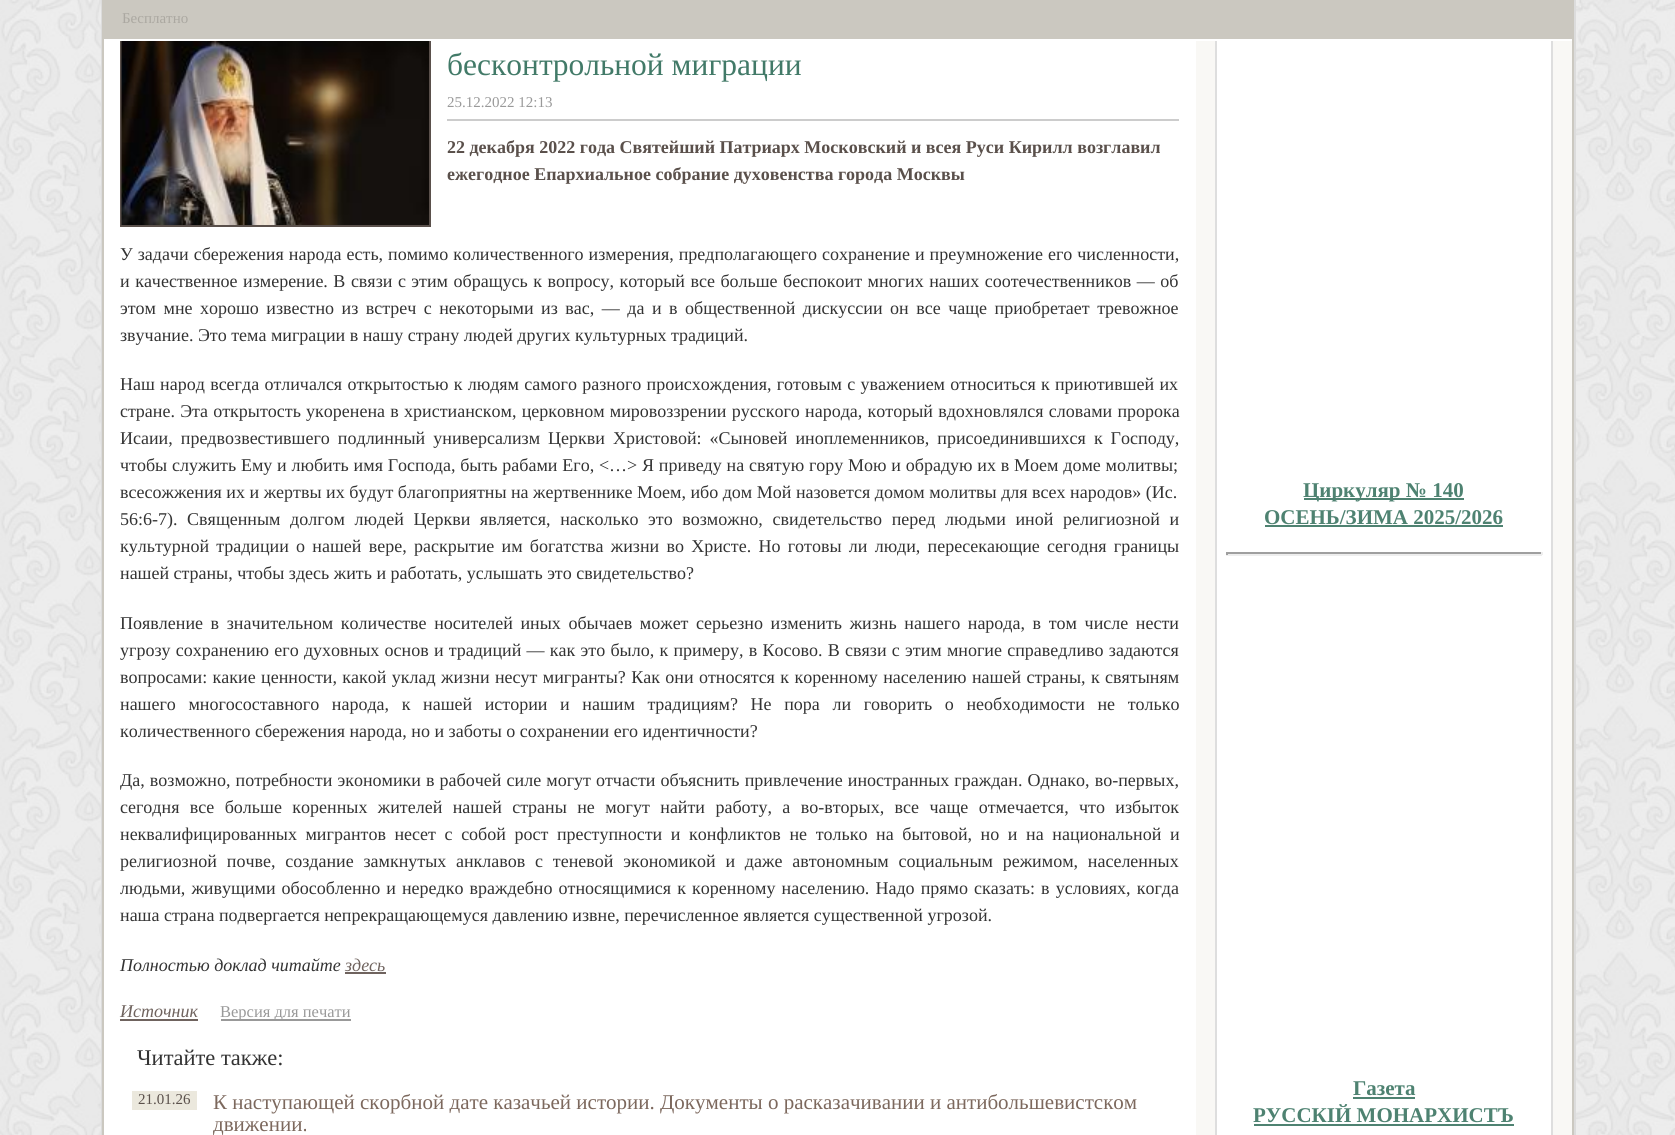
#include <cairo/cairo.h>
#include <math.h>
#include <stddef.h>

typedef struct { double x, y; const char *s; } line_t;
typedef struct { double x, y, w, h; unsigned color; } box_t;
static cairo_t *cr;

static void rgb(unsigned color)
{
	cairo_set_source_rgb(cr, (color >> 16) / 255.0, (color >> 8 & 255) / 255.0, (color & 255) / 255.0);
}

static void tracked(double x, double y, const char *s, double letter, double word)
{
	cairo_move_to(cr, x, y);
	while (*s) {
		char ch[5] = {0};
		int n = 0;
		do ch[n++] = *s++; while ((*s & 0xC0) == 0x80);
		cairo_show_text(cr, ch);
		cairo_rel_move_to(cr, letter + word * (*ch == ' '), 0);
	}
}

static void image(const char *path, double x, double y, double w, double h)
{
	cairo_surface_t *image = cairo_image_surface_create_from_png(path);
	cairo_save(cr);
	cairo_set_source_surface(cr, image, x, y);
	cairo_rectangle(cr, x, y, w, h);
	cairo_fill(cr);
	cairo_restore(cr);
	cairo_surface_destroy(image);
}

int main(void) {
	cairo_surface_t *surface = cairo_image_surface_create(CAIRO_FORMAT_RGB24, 1675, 1135);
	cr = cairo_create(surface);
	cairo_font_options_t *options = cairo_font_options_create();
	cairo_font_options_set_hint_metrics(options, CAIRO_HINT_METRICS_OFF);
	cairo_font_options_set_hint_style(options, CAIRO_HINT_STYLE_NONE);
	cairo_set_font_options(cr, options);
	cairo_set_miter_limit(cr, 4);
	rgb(0xffffff);
	cairo_paint(cr);
	image("img/1.png", 0, 0, 1675, 1135);
	{
		static const box_t items[] = {
			{1574, 0, 2, 1135, 0xdcdcdc},
			{101, 0, 1, 1135, 0xdcdcdc},
			{102, 0, 1472, 1135, 0xcbc8c0},
			{104, 41, 1092, 1094, 0xffffff},
		};
		for (size_t i = 0; i < sizeof items / sizeof *items; i++) {
			rgb(items[i].color);
			cairo_rectangle(cr, items[i].x, items[i].y, items[i].w, items[i].h);
			cairo_fill(cr);
		}
	}
	cairo_rectangle(cr, 121, 22, 309, 204);
	rgb(0x5a504b);
	cairo_stroke(cr);
	rgb(0xf9f8f5);
	cairo_rectangle(cr, 1196, 41, 376, 1094);
	cairo_fill(cr);
	rgb(0xffffff);
	cairo_rectangle(cr, 1217, 41, 334, 1094);
	cairo_fill(cr);
	cairo_rectangle(cr, 1216, 25, 336, 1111);
	rgb(0xdedede);
	cairo_stroke(cr);
	rgb(0xcbc8c0);
	cairo_rectangle(cr, 120, 21, 1433, 18);
	cairo_fill(cr);
	rgb(0xffffff);
	cairo_rectangle(cr, 104, 39, 1468, 2);
	cairo_fill(cr);
	image("img/2.png", 121, 41, 308, 184);
	{
		static const box_t items[] = {
			{447, 119, 732, 2, 0xcccccc},
			{345, 972, 41, 2, 0x6f635e},
			{120, 1019, 78, 2, 0x6f635e},
			{221, 1019, 130, 2, 0x999999},
			{132, 1091, 65, 19, 0xebe8dd},
			{1304, 498, 160, 2, 0x4e8271},
			{1265, 525, 238, 2, 0x4e8271},
			{1226, 552, 316, 2, 0x9f9f9f},
			{1541, 552, 2, 3, 0xeeeeee},
			{1226, 554, 316, 2, 0xeeeeee},
			{1226, 552, 2, 3, 0x9f9f9f},
			{1353, 1097, 62, 2, 0x4e8271},
			{1254, 1124, 260, 2, 0x4e8271},
		};
		for (size_t i = 0; i < sizeof items / sizeof *items; i++) {
			rgb(items[i].color);
			cairo_rectangle(cr, items[i].x, items[i].y, items[i].w, items[i].h);
			cairo_fill(cr);
		}
	}
	cairo_select_font_face(cr, "Liberation Serif", CAIRO_FONT_SLANT_NORMAL, CAIRO_FONT_WEIGHT_NORMAL);
	cairo_set_font_size(cr, 15);
	rgb(0xaba8a1);
	cairo_move_to(cr, 122, 23);
	cairo_show_text(cr, "Бесплатно");
	cairo_set_font_size(cr, 31.5);
	rgb(0x427a68);
	cairo_move_to(cr, 447, 75);
	cairo_show_text(cr, "бесконтрольной миграции");
	cairo_set_font_size(cr, 15);
	rgb(0x999999);
	cairo_move_to(cr, 447, 107);
	cairo_show_text(cr, "25.12.2022 12:13");
	cairo_select_font_face(cr, "Liberation Serif", CAIRO_FONT_SLANT_NORMAL, CAIRO_FONT_WEIGHT_BOLD);
	cairo_set_font_size(cr, 18);
	rgb(0x5a504b);
	cairo_move_to(cr, 447, 153);
	cairo_show_text(cr, "22 декабря 2022 года Святейший Патриарх Московский и всея Руси Кирилл возглавил");
	cairo_move_to(cr, 447, 180);
	cairo_show_text(cr, "ежегодное Епархиальное собрание духовенства города Москвы");
	cairo_select_font_face(cr, "Liberation Serif", CAIRO_FONT_SLANT_NORMAL, CAIRO_FONT_WEIGHT_NORMAL);
	rgb(0x333333);
	tracked(120, 260, "У задачи сбережения народа есть, помимо количественного измерения, предполагающего сохранение и преумножение его численности,", 0, 0.5);
	tracked(120, 287, "и качественное измерение. В связи с этим обращусь к вопросу, который все больше беспокоит многих наших соотечественников — об", 0, 1);
	tracked(120, 314, "этом мне хорошо известно из встреч с некоторыми из вас, — да и в общественной дискуссии он все чаще приобретает тревожное", 0, 3);
	cairo_move_to(cr, 120, 341);
	cairo_show_text(cr, "звучание. Это тема миграции в нашу страну людей других культурных традиций.");
	tracked(120, 390, "Наш народ всегда отличался открытостью к людям самого разного происхождения, готовым с уважением относиться к приютившей их", 0, 0.75);
	tracked(120, 417, "стране. Эта открытость укоренена в христианском, церковном мировоззрении русского народа, который вдохновлялся словами пророка", 0, 0.75);
	tracked(120, 444, "Исаии, предвозвестившего подлинный универсализм Церкви Христовой: «Сыновей иноплеменников, присоединившихся к Господу,", 0, 3.5);
	tracked(120, 471, "чтобы служить Ему и любить имя Господа, быть рабами Его, <…> Я приведу на святую гору Мою и обрадую их в Моем доме молитвы;", 0, 0.3);
	cairo_move_to(cr, 120, 498);
	cairo_show_text(cr, "всесожжения их и жертвы их будут благоприятны на жертвеннике Моем, ибо дом Мой назовется домом молитвы для всех народов» (Ис.");
	tracked(120, 525, "56:6-7). Священным долгом людей Церкви является, насколько это возможно, свидетельство перед людьми иной религиозной и", 0, 5.1);
	tracked(120, 552, "культурной традиции о нашей вере, раскрытие им богатства жизни во Христе. Но готовы ли люди, пересекающие сегодня границы", 0, 2.75);
	cairo_move_to(cr, 120, 579);
	cairo_show_text(cr, "нашей страны, чтобы здесь жить и работать, услышать это свидетельство?");
	tracked(120, 629, "Появление в значительном количестве носителей иных обычаев может серьезно изменить жизнь нашего народа, в том числе нести", 0, 3.1);
	tracked(120, 656, "угрозу сохранению его духовных основ и традиций — как это было, к примеру, в Косово. В связи с этим многие справедливо задаются", 0, 0.75);
	tracked(120, 683, "вопросами: какие ценности, какой уклад жизни несут мигранты? Как они относятся к коренному населению нашей страны, к святыням", 0, 0.9);
	tracked(120, 710, "нашего многосоставного народа, к нашей истории и нашим традициям? Не пора ли говорить о необходимости не только", 0, 8.1);
	cairo_move_to(cr, 120, 737);
	cairo_show_text(cr, "количественного сбережения народа, но и заботы о сохранении его идентичности?");
	tracked(120, 786, "Да, возможно, потребности экономики в рабочей силе могут отчасти объяснить привлечение иностранных граждан. Однако, во-первых,", 0, 0.6);
	tracked(120, 813, "сегодня все больше коренных жителей нашей страны не могут найти работу, а во-вторых, все чаще отмечается, что избыток", 0, 5.9);
	tracked(120, 840, "неквалифицированных мигрантов несет с собой рост преступности и конфликтов не только на бытовой, но и на национальной и", 0, 4.1);
	tracked(120, 867, "религиозной почве, создание замкнутых анклавов с теневой экономикой и даже автономным социальным режимом, населенных", 0, 5.25);
	tracked(120, 894, "людьми, живущими обособленно и нередко враждебно относящимися к коренному населению. Надо прямо сказать: в условиях, когда", 0, 1.6);
	cairo_move_to(cr, 120, 921);
	cairo_show_text(cr, "наша страна подвергается непрекращающемуся давлению извне, перечисленное является существенной угрозой.");
	cairo_select_font_face(cr, "Liberation Serif", CAIRO_FONT_SLANT_ITALIC, CAIRO_FONT_WEIGHT_NORMAL);
	cairo_move_to(cr, 120, 971);
	cairo_show_text(cr, "Полностью доклад читайте");
	rgb(0x6f635e);
	cairo_move_to(cr, 345, 971);
	cairo_show_text(cr, "здесь");
	cairo_move_to(cr, 120, 1017);
	cairo_show_text(cr, "Источник");
	cairo_select_font_face(cr, "Liberation Serif", CAIRO_FONT_SLANT_NORMAL, CAIRO_FONT_WEIGHT_NORMAL);
	cairo_set_font_size(cr, 16.5);
	rgb(0x999999);
	cairo_move_to(cr, 220, 1017);
	cairo_show_text(cr, "Версия для печати");
	cairo_set_font_size(cr, 22.5);
	rgb(0x333333);
	cairo_move_to(cr, 137, 1065);
	cairo_show_text(cr, "Читайте также:");
	cairo_set_font_size(cr, 15);
	rgb(0x5a504b);
	cairo_move_to(cr, 138, 1104);
	cairo_show_text(cr, "21.01.26");
	cairo_set_font_size(cr, 21);
	rgb(0x7c685d);
	cairo_move_to(cr, 213, 1109);
	cairo_show_text(cr, "К наступающей скорбной дате казачьей истории. Документы о расказачивании и антибольшевистском");
	cairo_move_to(cr, 213, 1131);
	cairo_show_text(cr, "движении.");
	cairo_select_font_face(cr, "Liberation Serif", CAIRO_FONT_SLANT_NORMAL, CAIRO_FONT_WEIGHT_BOLD);
	rgb(0x4e8271);
	{
		static const line_t items[] = {
			{1303, 497, "Циркуляр № 140"},
			{1264, 524, "ОСЕНЬ/ЗИМА 2025/2026"},
			{1353, 1095, "Газета"},
			{1253, 1122, "РУССКIЙ МОНАРХИСТЪ"},
		};
		for (size_t i = 0; i < sizeof items / sizeof *items; i++) {
			cairo_move_to(cr, items[i].x, items[i].y);
			cairo_show_text(cr, items[i].s);
		}
	}
	cairo_surface_write_to_png(surface, "page.png");
	cairo_font_options_destroy(options);
	cairo_destroy(cr);
	cairo_surface_destroy(surface);
	return 0;
}
